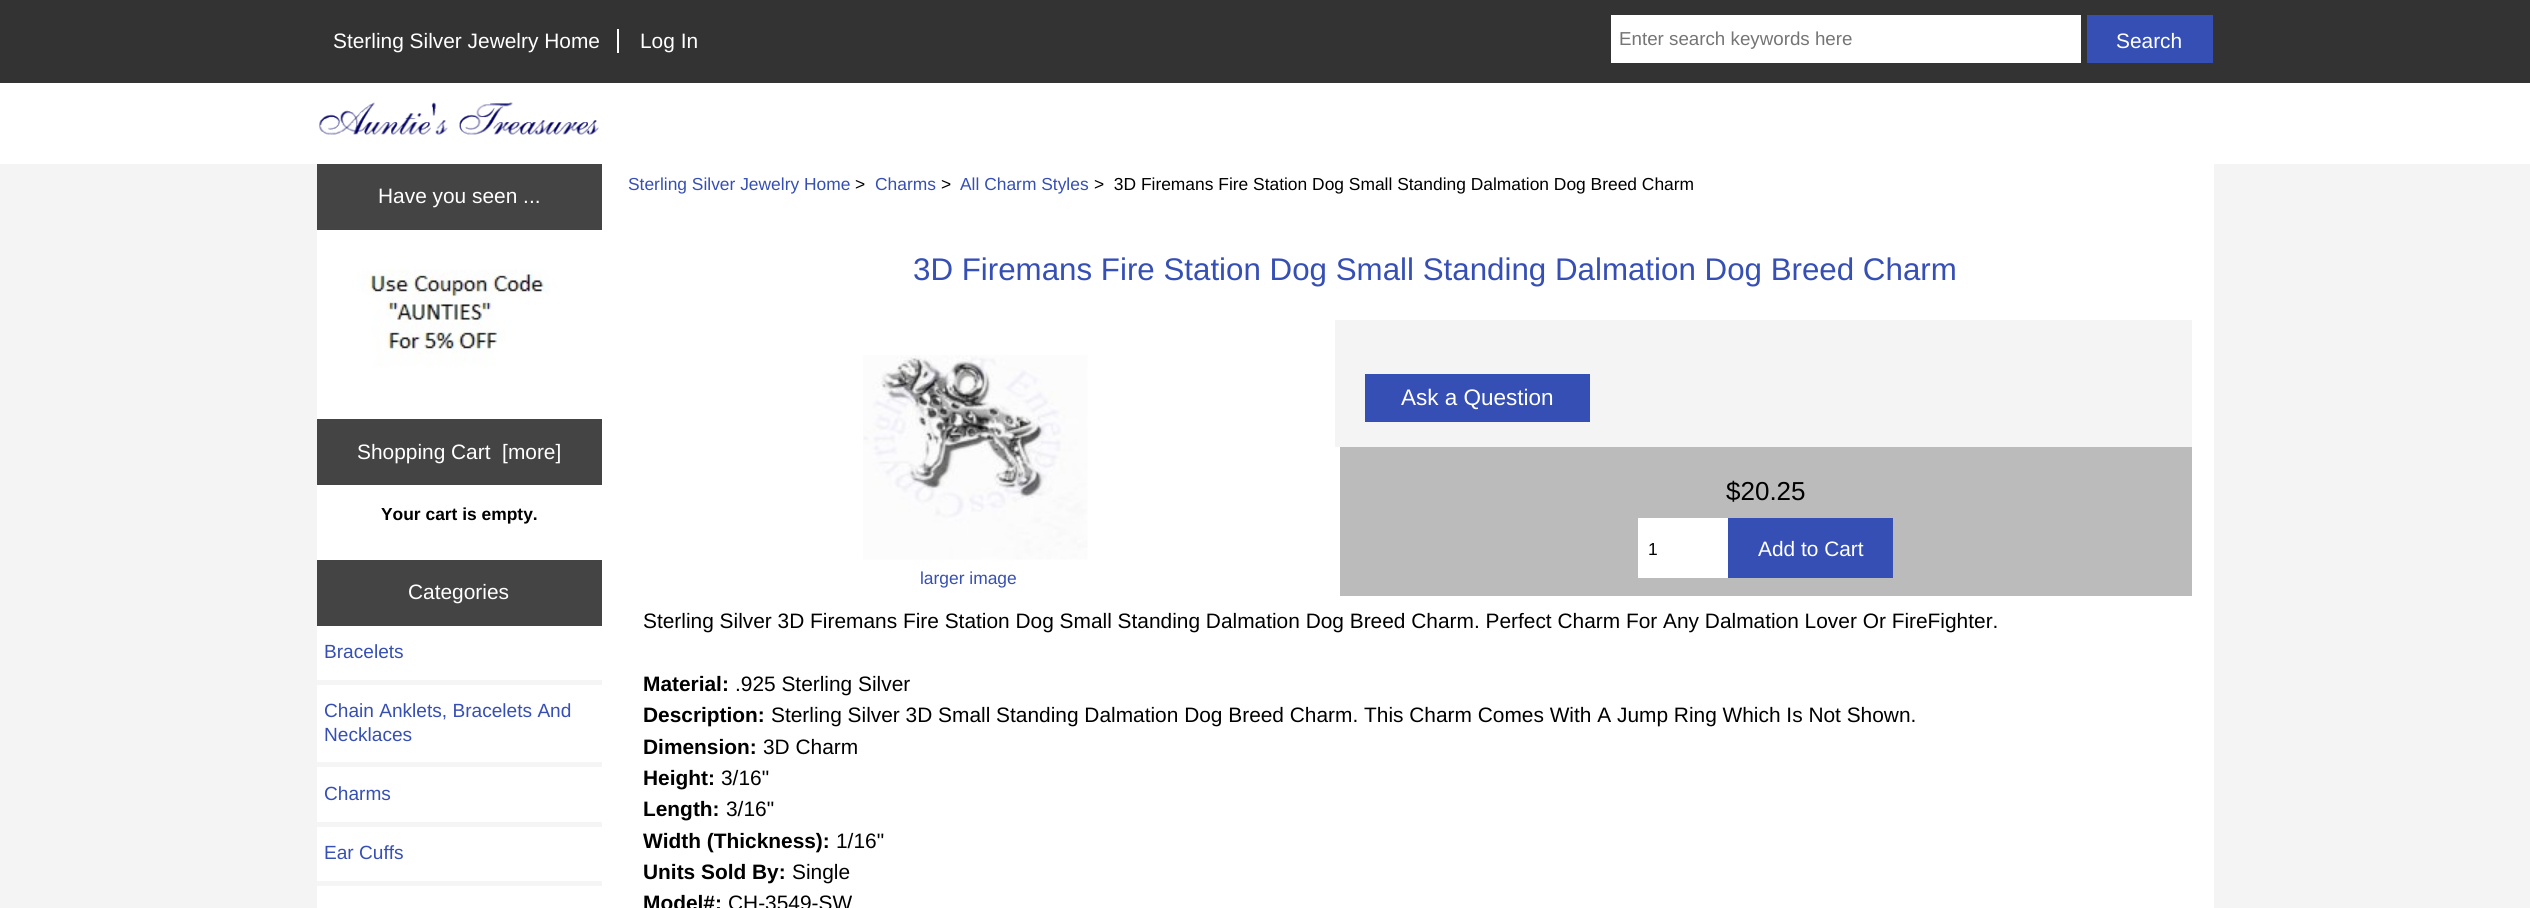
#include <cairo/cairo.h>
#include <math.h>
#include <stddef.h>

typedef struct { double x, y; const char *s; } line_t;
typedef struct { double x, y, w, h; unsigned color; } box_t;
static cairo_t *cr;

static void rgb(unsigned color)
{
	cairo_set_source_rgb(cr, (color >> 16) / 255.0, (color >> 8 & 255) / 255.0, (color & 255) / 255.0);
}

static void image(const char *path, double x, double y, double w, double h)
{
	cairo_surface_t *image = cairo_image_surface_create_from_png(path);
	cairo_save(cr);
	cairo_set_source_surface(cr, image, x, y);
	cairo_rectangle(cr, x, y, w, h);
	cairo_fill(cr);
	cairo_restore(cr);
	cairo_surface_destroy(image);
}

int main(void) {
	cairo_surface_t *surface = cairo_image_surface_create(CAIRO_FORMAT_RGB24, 2530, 908);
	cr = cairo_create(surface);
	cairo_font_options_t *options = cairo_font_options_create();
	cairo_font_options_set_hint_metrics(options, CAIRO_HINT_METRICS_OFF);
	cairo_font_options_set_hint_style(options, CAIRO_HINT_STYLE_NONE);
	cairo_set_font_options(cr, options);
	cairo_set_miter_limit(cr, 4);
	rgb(0xf4f4f4);
	cairo_paint(cr);
	{
		static const box_t items[] = {
			{0, 83, 2530, 81, 0xffffff},
			{0, 0, 2530, 83, 0x333333},
			{617, 29, 2, 24, 0xffffff},
			{1611, 15, 470, 48, 0xffffff},
			{2087, 15, 126, 48, 0x364fb5},
		};
		for (size_t i = 0; i < sizeof items / sizeof *items; i++) {
			rgb(items[i].color);
			cairo_rectangle(cr, items[i].x, items[i].y, items[i].w, items[i].h);
			cairo_fill(cr);
		}
	}
	image("img/1.png", 319, 102, 280, 33);
	rgb(0xffffff);
	cairo_rectangle(cr, 317, 164, 1897, 744);
	cairo_fill(cr);
	rgb(0x444444);
	cairo_rectangle(cr, 317, 164, 285, 66);
	cairo_fill(cr);
	image("img/2.png", 356, 269, 194, 97);
	{
		static const box_t items[] = {
			{317, 419, 285, 66, 0x444444},
			{317, 560, 285, 66, 0x444444},
			{317, 680, 285, 5, 0xf5f5f5},
			{317, 762, 285, 5, 0xf5f5f5},
			{317, 822, 285, 5, 0xf5f5f5},
			{317, 881, 285, 5, 0xf5f5f5},
			{1335, 320, 857, 127, 0xf4f4f4},
			{1365, 374, 225, 48, 0x364fb5},
			{1340, 447, 852, 149, 0xbbbbbb},
			{1638, 518, 90, 60, 0xffffff},
			{1728, 518, 165, 60, 0x364fb5},
		};
		for (size_t i = 0; i < sizeof items / sizeof *items; i++) {
			rgb(items[i].color);
			cairo_rectangle(cr, items[i].x, items[i].y, items[i].w, items[i].h);
			cairo_fill(cr);
		}
	}
	image("img/3.png", 863, 355, 225, 205);
	cairo_select_font_face(cr, "Liberation Sans", CAIRO_FONT_SLANT_NORMAL, CAIRO_FONT_WEIGHT_NORMAL);
	cairo_set_font_size(cr, 20.88);
	rgb(0xffffff);
	cairo_move_to(cr, 333, 48);
	cairo_show_text(cr, "Sterling Silver Jewelry Home");
	cairo_move_to(cr, 640, 48);
	cairo_show_text(cr, "Log In");
	cairo_set_font_size(cr, 18.75);
	rgb(0x757575);
	cairo_move_to(cr, 1619, 45);
	cairo_show_text(cr, "Enter search keywords here");
	cairo_set_font_size(cr, 20.88);
	rgb(0xffffff);
	{
		static const line_t items[] = {
			{2116, 48, "Search"},
			{378, 203, "Have you seen ..."},
			{357, 459, "Shopping Cart  [more]"},
		};
		for (size_t i = 0; i < sizeof items / sizeof *items; i++) {
			cairo_move_to(cr, items[i].x, items[i].y);
			cairo_show_text(cr, items[i].s);
		}
	}
	cairo_select_font_face(cr, "Liberation Sans", CAIRO_FONT_SLANT_NORMAL, CAIRO_FONT_WEIGHT_BOLD);
	cairo_set_font_size(cr, 17.4);
	rgb(0x000000);
	cairo_move_to(cr, 381, 520);
	cairo_show_text(cr, "Your cart is empty.");
	cairo_select_font_face(cr, "Liberation Sans", CAIRO_FONT_SLANT_NORMAL, CAIRO_FONT_WEIGHT_NORMAL);
	cairo_set_font_size(cr, 20.88);
	rgb(0xffffff);
	cairo_move_to(cr, 408, 599);
	cairo_show_text(cr, "Categories");
	cairo_set_font_size(cr, 19.1);
	rgb(0x364fb5);
	{
		static const line_t items[] = {
			{324, 658, "Bracelets"},
			{324, 717, "Chain Anklets, Bracelets And"},
			{324, 741, "Necklaces"},
			{324, 800, "Charms"},
			{324, 859, "Ear Cuffs"},
		};
		for (size_t i = 0; i < sizeof items / sizeof *items; i++) {
			cairo_move_to(cr, items[i].x, items[i].y);
			cairo_show_text(cr, items[i].s);
		}
	}
	cairo_set_font_size(cr, 17.4);
	cairo_move_to(cr, 628, 190);
	cairo_show_text(cr, "Sterling Silver Jewelry Home");
	rgb(0x000000);
	cairo_move_to(cr, 855, 190);
	cairo_show_text(cr, ">");
	rgb(0x364fb5);
	cairo_move_to(cr, 875, 190);
	cairo_show_text(cr, "Charms");
	rgb(0x000000);
	cairo_move_to(cr, 941, 190);
	cairo_show_text(cr, ">");
	rgb(0x364fb5);
	cairo_move_to(cr, 960, 190);
	cairo_show_text(cr, "All Charm Styles");
	rgb(0x000000);
	cairo_move_to(cr, 1094, 190);
	cairo_show_text(cr, ">  3D Firemans Fire Station Dog Small Standing Dalmation Dog Breed Charm");
	cairo_set_font_size(cr, 31.3);
	rgb(0x364fb5);
	cairo_move_to(cr, 913, 280);
	cairo_show_text(cr, "3D Firemans Fire Station Dog Small Standing Dalmation Dog Breed Charm");
	cairo_set_font_size(cr, 22.5);
	rgb(0xffffff);
	cairo_move_to(cr, 1401, 405);
	cairo_show_text(cr, "Ask a Question");
	cairo_set_font_size(cr, 26);
	rgb(0x000000);
	cairo_move_to(cr, 1726, 500);
	cairo_show_text(cr, "$20.25");
	cairo_set_font_size(cr, 17.4);
	cairo_move_to(cr, 1648, 555);
	cairo_show_text(cr, "1");
	cairo_set_font_size(cr, 20.88);
	rgb(0xffffff);
	cairo_move_to(cr, 1758, 556);
	cairo_show_text(cr, "Add to Cart");
	cairo_set_font_size(cr, 17.4);
	rgb(0x364fb5);
	cairo_move_to(cr, 920, 584);
	cairo_show_text(cr, "larger image");
	cairo_set_font_size(cr, 20.88);
	rgb(0x000000);
	cairo_move_to(cr, 643, 628);
	cairo_show_text(cr, "Sterling Silver 3D Firemans Fire Station Dog Small Standing Dalmation Dog Breed Charm. Perfect Charm For Any Dalmation Lover Or FireFighter.");
	cairo_select_font_face(cr, "Liberation Sans", CAIRO_FONT_SLANT_NORMAL, CAIRO_FONT_WEIGHT_BOLD);
	cairo_move_to(cr, 643, 691);
	cairo_show_text(cr, "Material:");
	cairo_select_font_face(cr, "Liberation Sans", CAIRO_FONT_SLANT_NORMAL, CAIRO_FONT_WEIGHT_NORMAL);
	cairo_move_to(cr, 735, 691);
	cairo_show_text(cr, ".925 Sterling Silver");
	cairo_select_font_face(cr, "Liberation Sans", CAIRO_FONT_SLANT_NORMAL, CAIRO_FONT_WEIGHT_BOLD);
	cairo_move_to(cr, 643, 722);
	cairo_show_text(cr, "Description:");
	cairo_select_font_face(cr, "Liberation Sans", CAIRO_FONT_SLANT_NORMAL, CAIRO_FONT_WEIGHT_NORMAL);
	cairo_move_to(cr, 771, 722);
	cairo_show_text(cr, "Sterling Silver 3D Small Standing Dalmation Dog Breed Charm. This Charm Comes With A Jump Ring Which Is Not Shown.");
	cairo_select_font_face(cr, "Liberation Sans", CAIRO_FONT_SLANT_NORMAL, CAIRO_FONT_WEIGHT_BOLD);
	cairo_move_to(cr, 643, 754);
	cairo_show_text(cr, "Dimension:");
	cairo_select_font_face(cr, "Liberation Sans", CAIRO_FONT_SLANT_NORMAL, CAIRO_FONT_WEIGHT_NORMAL);
	cairo_move_to(cr, 763, 754);
	cairo_show_text(cr, "3D Charm");
	cairo_select_font_face(cr, "Liberation Sans", CAIRO_FONT_SLANT_NORMAL, CAIRO_FONT_WEIGHT_BOLD);
	cairo_move_to(cr, 643, 785);
	cairo_show_text(cr, "Height:");
	cairo_select_font_face(cr, "Liberation Sans", CAIRO_FONT_SLANT_NORMAL, CAIRO_FONT_WEIGHT_NORMAL);
	cairo_move_to(cr, 721, 785);
	cairo_show_text(cr, "3/16\"");
	cairo_select_font_face(cr, "Liberation Sans", CAIRO_FONT_SLANT_NORMAL, CAIRO_FONT_WEIGHT_BOLD);
	cairo_move_to(cr, 643, 816);
	cairo_show_text(cr, "Length:");
	cairo_select_font_face(cr, "Liberation Sans", CAIRO_FONT_SLANT_NORMAL, CAIRO_FONT_WEIGHT_NORMAL);
	cairo_move_to(cr, 726, 816);
	cairo_show_text(cr, "3/16\"");
	cairo_select_font_face(cr, "Liberation Sans", CAIRO_FONT_SLANT_NORMAL, CAIRO_FONT_WEIGHT_BOLD);
	cairo_move_to(cr, 643, 848);
	cairo_show_text(cr, "Width (Thickness):");
	cairo_select_font_face(cr, "Liberation Sans", CAIRO_FONT_SLANT_NORMAL, CAIRO_FONT_WEIGHT_NORMAL);
	cairo_move_to(cr, 836, 848);
	cairo_show_text(cr, "1/16\"");
	cairo_select_font_face(cr, "Liberation Sans", CAIRO_FONT_SLANT_NORMAL, CAIRO_FONT_WEIGHT_BOLD);
	cairo_move_to(cr, 643, 879);
	cairo_show_text(cr, "Units Sold By:");
	cairo_select_font_face(cr, "Liberation Sans", CAIRO_FONT_SLANT_NORMAL, CAIRO_FONT_WEIGHT_NORMAL);
	cairo_move_to(cr, 792, 879);
	cairo_show_text(cr, "Single");
	cairo_select_font_face(cr, "Liberation Sans", CAIRO_FONT_SLANT_NORMAL, CAIRO_FONT_WEIGHT_BOLD);
	cairo_move_to(cr, 643, 910);
	cairo_show_text(cr, "Model#:");
	cairo_select_font_face(cr, "Liberation Sans", CAIRO_FONT_SLANT_NORMAL, CAIRO_FONT_WEIGHT_NORMAL);
	cairo_move_to(cr, 728, 910);
	cairo_show_text(cr, "CH-3549-SW");
	cairo_surface_write_to_png(surface, "page.png");
	cairo_font_options_destroy(options);
	cairo_destroy(cr);
	cairo_surface_destroy(surface);
	return 0;
}
